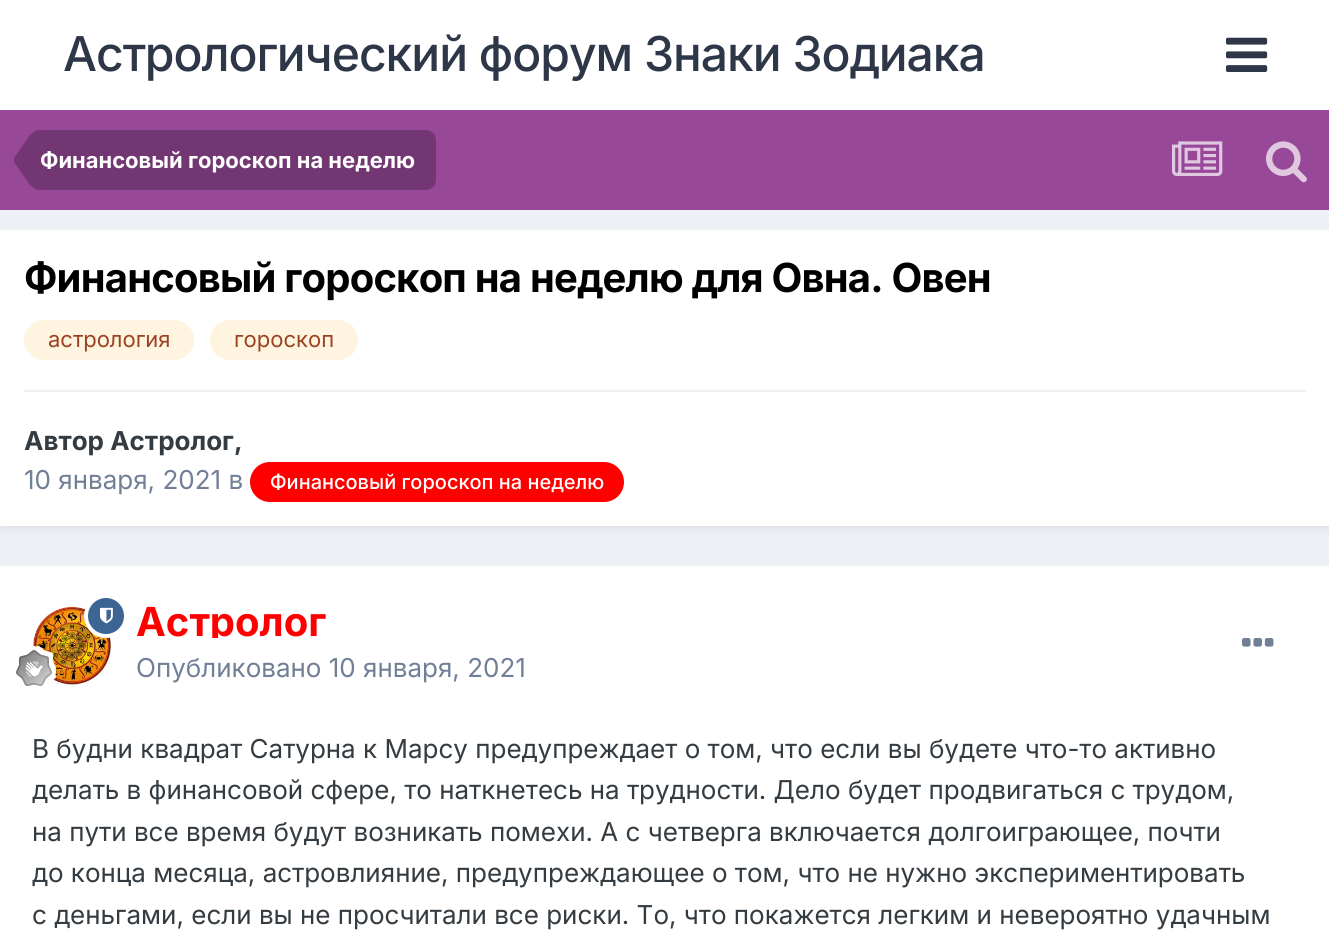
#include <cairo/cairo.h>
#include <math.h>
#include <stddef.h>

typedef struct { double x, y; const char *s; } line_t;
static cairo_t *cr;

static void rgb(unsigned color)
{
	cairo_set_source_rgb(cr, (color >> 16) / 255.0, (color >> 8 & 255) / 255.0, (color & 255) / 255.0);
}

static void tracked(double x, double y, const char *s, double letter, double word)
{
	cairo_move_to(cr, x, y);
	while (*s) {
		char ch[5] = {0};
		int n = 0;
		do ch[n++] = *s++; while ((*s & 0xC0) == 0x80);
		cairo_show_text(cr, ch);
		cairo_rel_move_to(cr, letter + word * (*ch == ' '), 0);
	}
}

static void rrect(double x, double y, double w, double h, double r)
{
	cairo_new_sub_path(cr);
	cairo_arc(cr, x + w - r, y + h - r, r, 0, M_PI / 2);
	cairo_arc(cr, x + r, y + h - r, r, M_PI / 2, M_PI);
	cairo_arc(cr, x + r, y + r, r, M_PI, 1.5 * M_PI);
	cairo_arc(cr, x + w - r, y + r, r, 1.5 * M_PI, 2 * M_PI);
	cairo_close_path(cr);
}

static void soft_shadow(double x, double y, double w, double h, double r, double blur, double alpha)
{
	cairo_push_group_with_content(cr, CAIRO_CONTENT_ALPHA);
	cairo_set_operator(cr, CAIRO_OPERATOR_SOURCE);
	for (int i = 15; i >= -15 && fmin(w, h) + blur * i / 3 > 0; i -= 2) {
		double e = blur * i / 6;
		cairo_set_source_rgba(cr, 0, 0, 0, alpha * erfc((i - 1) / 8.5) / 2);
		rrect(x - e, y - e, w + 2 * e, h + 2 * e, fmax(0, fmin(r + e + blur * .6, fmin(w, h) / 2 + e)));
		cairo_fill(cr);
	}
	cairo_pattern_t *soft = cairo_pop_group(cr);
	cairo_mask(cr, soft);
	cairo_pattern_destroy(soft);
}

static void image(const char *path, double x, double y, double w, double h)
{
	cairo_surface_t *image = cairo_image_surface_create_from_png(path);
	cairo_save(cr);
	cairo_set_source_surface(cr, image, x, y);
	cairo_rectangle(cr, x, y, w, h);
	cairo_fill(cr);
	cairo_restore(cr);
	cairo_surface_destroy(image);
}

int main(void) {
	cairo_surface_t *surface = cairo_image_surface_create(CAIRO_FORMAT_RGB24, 1329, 942);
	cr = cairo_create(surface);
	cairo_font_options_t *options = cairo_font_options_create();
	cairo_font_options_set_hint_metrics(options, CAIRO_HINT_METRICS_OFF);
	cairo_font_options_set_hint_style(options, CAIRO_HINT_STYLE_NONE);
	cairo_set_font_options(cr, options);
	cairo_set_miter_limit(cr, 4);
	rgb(0xedf0f4);
	cairo_paint(cr);
	rgb(0xffffff);
	cairo_rectangle(cr, 0, 0, 1329, 110);
	cairo_fill(cr);
	image("img/1.png", 1226, 37, 42, 35);
	rgb(0x984898);
	cairo_rectangle(cr, 0, 110, 1329, 100);
	cairo_fill(cr);
	rgb(0x723672);
	cairo_new_path(cr);
	cairo_move_to(cr, 40, 130);
	cairo_line_to(cr, 426, 130);
	cairo_curve_to(cr, 431.5, 130, 436, 134.5, 436, 140);
	cairo_line_to(cr, 436, 180);
	cairo_curve_to(cr, 436, 185.5, 431.5, 190, 426, 190);
	cairo_line_to(cr, 40, 190);
	cairo_close_path(cr);
	cairo_fill(cr);
	cairo_new_path(cr);
	cairo_move_to(cr, 40, 160);
	cairo_line_to(cr, 40, 190);
	cairo_curve_to(cr, 36.5, 190, 33, 188, 30, 185);
	cairo_line_to(cr, 15, 163.5);
	cairo_curve_to(cr, 14.5, 162.5, 14, 161.5, 14, 160);
	cairo_close_path(cr);
	cairo_move_to(cr, 40, 160);
	cairo_line_to(cr, 14, 160);
	cairo_curve_to(cr, 14, 158.5, 14.5, 157.5, 15, 156.5);
	cairo_line_to(cr, 30, 135);
	cairo_curve_to(cr, 33, 132, 36.5, 130, 40, 130);
	cairo_close_path(cr);
	cairo_fill(cr);
	image("img/2.png", 1172, 141, 51, 35);
	image("img/3.png", 1266, 141, 41, 42);
	rgb(0x2d3748);
	soft_shadow(2, 236, 1326, 292, 0, 4, 0.1);
	rgb(0xffffff);
	cairo_rectangle(cr, 0, 230, 1329, 296);
	cairo_fill(cr);
	rgb(0xfff4df);
	rrect(24, 320, 170, 40, 20);
	cairo_fill(cr);
	rrect(210, 320, 148, 40, 20);
	cairo_fill(cr);
	rgb(0xefeff0);
	cairo_rectangle(cr, 24, 390, 1282, 2);
	cairo_fill(cr);
	rgb(0xff0000);
	rrect(250, 462, 374, 40, 20);
	cairo_fill(cr);
	rgb(0xffffff);
	cairo_rectangle(cr, 0, 566, 1329, 376);
	cairo_fill(cr);
	image("img/5.png", 32, 606, 80, 80);
	rgb(0x3d6594);
	cairo_arc(cr, 106, 616, 20, 0, 2 * M_PI);
	cairo_fill_preserve(cr);
	rgb(0xffffff);
	cairo_set_line_width(cr, 4);
	cairo_stroke(cr);
	image("img/4.png", 100, 607, 13, 17);
	image("img/6.png", 16, 646, 40, 40);
	image("img/7.png", 1242, 638, 32, 9);
	cairo_select_font_face(cr, "Inter Medium", CAIRO_FONT_SLANT_NORMAL, CAIRO_FONT_WEIGHT_NORMAL);
	cairo_set_font_size(cr, 48);
	rgb(0x2d3748);
	tracked(63, 71, "Астрологический форум Знаки Зодиака", -1, 0);
	cairo_select_font_face(cr, "Inter", CAIRO_FONT_SLANT_NORMAL, CAIRO_FONT_WEIGHT_BOLD);
	cairo_set_font_size(cr, 22);
	rgb(0xffffff);
	cairo_move_to(cr, 40, 168);
	cairo_show_text(cr, "Финансовый гороскоп на неделю");
	cairo_set_font_size(cr, 40);
	rgb(0x000000);
	tracked(24, 292, "Финансовый гороскоп на неделю для Овна. Овен", -0.8, 0);
	cairo_select_font_face(cr, "Inter", CAIRO_FONT_SLANT_NORMAL, CAIRO_FONT_WEIGHT_NORMAL);
	cairo_set_font_size(cr, 22);
	rgb(0x9c4221);
	cairo_move_to(cr, 48, 347);
	cairo_show_text(cr, "астрология");
	cairo_move_to(cr, 234, 347);
	cairo_show_text(cr, "гороскоп");
	cairo_select_font_face(cr, "Inter", CAIRO_FONT_SLANT_NORMAL, CAIRO_FONT_WEIGHT_BOLD);
	cairo_set_font_size(cr, 26);
	rgb(0x353c41);
	cairo_move_to(cr, 24, 450);
	cairo_show_text(cr, "Автор Астролог,");
	cairo_select_font_face(cr, "Inter", CAIRO_FONT_SLANT_NORMAL, CAIRO_FONT_WEIGHT_NORMAL);
	rgb(0x718096);
	cairo_move_to(cr, 24, 489);
	cairo_show_text(cr, "10 января, 2021 в");
	cairo_select_font_face(cr, "Inter Medium", CAIRO_FONT_SLANT_NORMAL, CAIRO_FONT_WEIGHT_NORMAL);
	cairo_set_font_size(cr, 20);
	rgb(0xffffff);
	cairo_move_to(cr, 270, 489);
	cairo_show_text(cr, "Финансовый гороскоп на неделю");
	cairo_save(cr);
	cairo_rectangle(cr, 136, 606, 190, 32);
	cairo_clip(cr);
	cairo_select_font_face(cr, "Inter", CAIRO_FONT_SLANT_NORMAL, CAIRO_FONT_WEIGHT_BOLD);
	cairo_set_font_size(cr, 40);
	rgb(0xff0000);
	cairo_move_to(cr, 136, 636);
	cairo_show_text(cr, "Астролог");
	cairo_restore(cr);
	cairo_select_font_face(cr, "Inter", CAIRO_FONT_SLANT_NORMAL, CAIRO_FONT_WEIGHT_NORMAL);
	cairo_set_font_size(cr, 26);
	rgb(0x718096);
	cairo_move_to(cr, 136, 677);
	cairo_show_text(cr, "Опубликовано 10 января, 2021");
	rgb(0x353c41);
	{
		static const line_t items[] = {
			{32, 758, "В будни квадрат Сатурна к Марсу предупреждает о том, что если вы будете что-то активно"},
			{32, 799, "делать в финансовой сфере, то наткнетесь на трудности. Дело будет продвигаться с трудом,"},
			{32, 841, "на пути все время будут возникать помехи. А с четверга включается долгоиграющее, почти"},
			{32, 882, "до конца месяца, астровлияние, предупреждающее о том, что не нужно экспериментировать"},
			{32, 924, "с деньгами, если вы не просчитали все риски. То, что покажется легким и невероятно удачным"},
		};
		for (size_t i = 0; i < sizeof items / sizeof *items; i++) {
			cairo_move_to(cr, items[i].x, items[i].y);
			cairo_show_text(cr, items[i].s);
		}
	}
	cairo_surface_write_to_png(surface, "page.png");
	cairo_font_options_destroy(options);
	cairo_destroy(cr);
	cairo_surface_destroy(surface);
	return 0;
}
